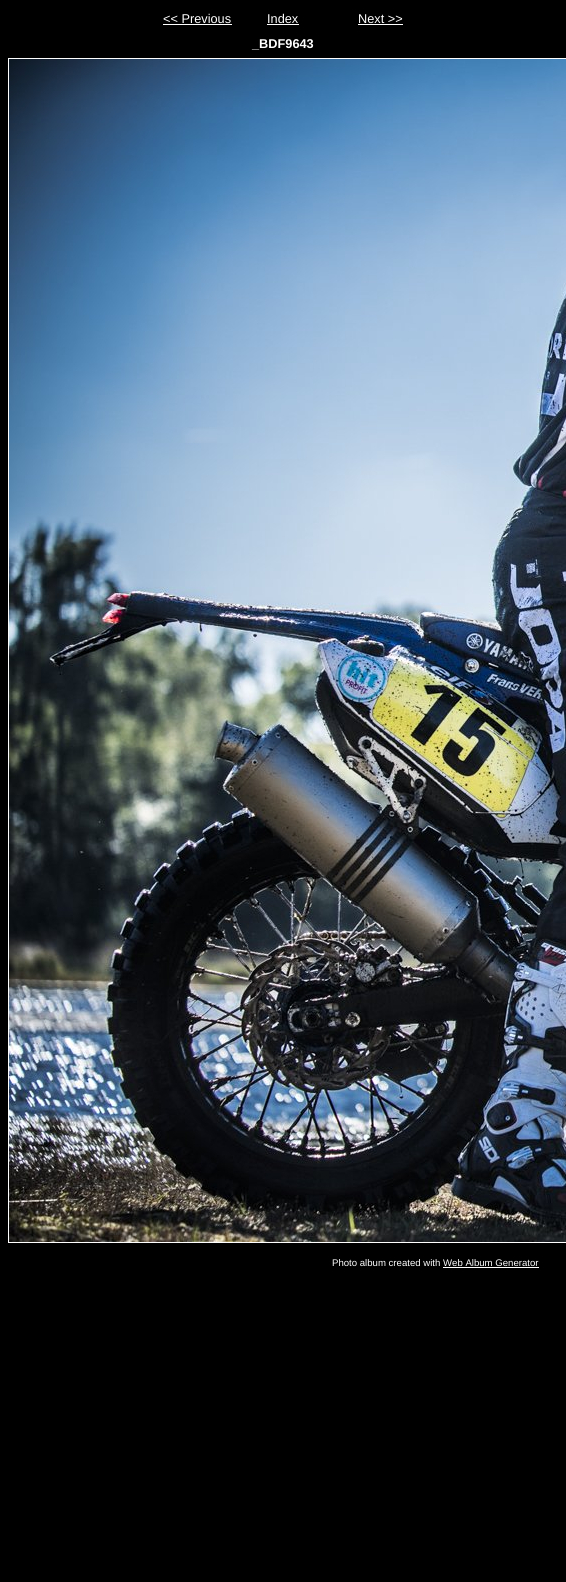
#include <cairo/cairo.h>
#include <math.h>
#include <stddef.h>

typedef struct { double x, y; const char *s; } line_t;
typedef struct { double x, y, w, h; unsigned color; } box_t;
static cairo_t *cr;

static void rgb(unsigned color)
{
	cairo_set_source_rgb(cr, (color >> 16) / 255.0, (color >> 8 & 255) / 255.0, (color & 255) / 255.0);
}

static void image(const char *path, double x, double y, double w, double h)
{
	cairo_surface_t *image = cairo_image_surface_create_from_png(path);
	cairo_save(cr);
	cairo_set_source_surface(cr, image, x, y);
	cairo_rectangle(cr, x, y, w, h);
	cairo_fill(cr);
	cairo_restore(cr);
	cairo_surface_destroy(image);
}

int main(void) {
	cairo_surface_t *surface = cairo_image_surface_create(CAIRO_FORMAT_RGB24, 566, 1582);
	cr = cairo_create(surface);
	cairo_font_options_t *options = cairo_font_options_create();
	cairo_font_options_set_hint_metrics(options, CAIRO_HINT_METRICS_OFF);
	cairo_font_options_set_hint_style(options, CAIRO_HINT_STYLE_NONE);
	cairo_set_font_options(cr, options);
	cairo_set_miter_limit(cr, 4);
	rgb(0x000000);
	cairo_paint(cr);
	{
		static const box_t items[] = {
			{163, 24, 69, 1, 0xffffff},
			{267, 24, 32, 1, 0xffffff},
			{358, 24, 45, 1, 0xffffff},
		};
		for (size_t i = 0; i < sizeof items / sizeof *items; i++) {
			rgb(items[i].color);
			cairo_rectangle(cr, items[i].x, items[i].y, items[i].w, items[i].h);
			cairo_fill(cr);
		}
	}
	cairo_rectangle(cr, 8.5, 58.5, 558, 1184);
	cairo_set_line_width(cr, 1);
	cairo_stroke(cr);
	image("img/1.png", 9, 59, 557, 1183);
	cairo_rectangle(cr, 443, 1267, 96, 1);
	cairo_fill(cr);
	cairo_select_font_face(cr, "Liberation Sans", CAIRO_FONT_SLANT_NORMAL, CAIRO_FONT_WEIGHT_NORMAL);
	cairo_set_font_size(cr, 12.75);
	{
		static const line_t items[] = {
			{163, 23, "<< Previous"},
			{267, 23, "Index"},
			{358, 23, "Next >>"},
		};
		for (size_t i = 0; i < sizeof items / sizeof *items; i++) {
			cairo_move_to(cr, items[i].x, items[i].y);
			cairo_show_text(cr, items[i].s);
		}
	}
	cairo_select_font_face(cr, "Liberation Sans", CAIRO_FONT_SLANT_NORMAL, CAIRO_FONT_WEIGHT_BOLD);
	cairo_move_to(cr, 252, 48);
	cairo_show_text(cr, "_BDF9643");
	cairo_select_font_face(cr, "Liberation Sans", CAIRO_FONT_SLANT_NORMAL, CAIRO_FONT_WEIGHT_NORMAL);
	cairo_set_font_size(cr, 9.6);
	cairo_move_to(cr, 332, 1266);
	cairo_show_text(cr, "Photo album created with Web Album Generator");
	cairo_surface_write_to_png(surface, "page.png");
	cairo_font_options_destroy(options);
	cairo_destroy(cr);
	cairo_surface_destroy(surface);
	return 0;
}
